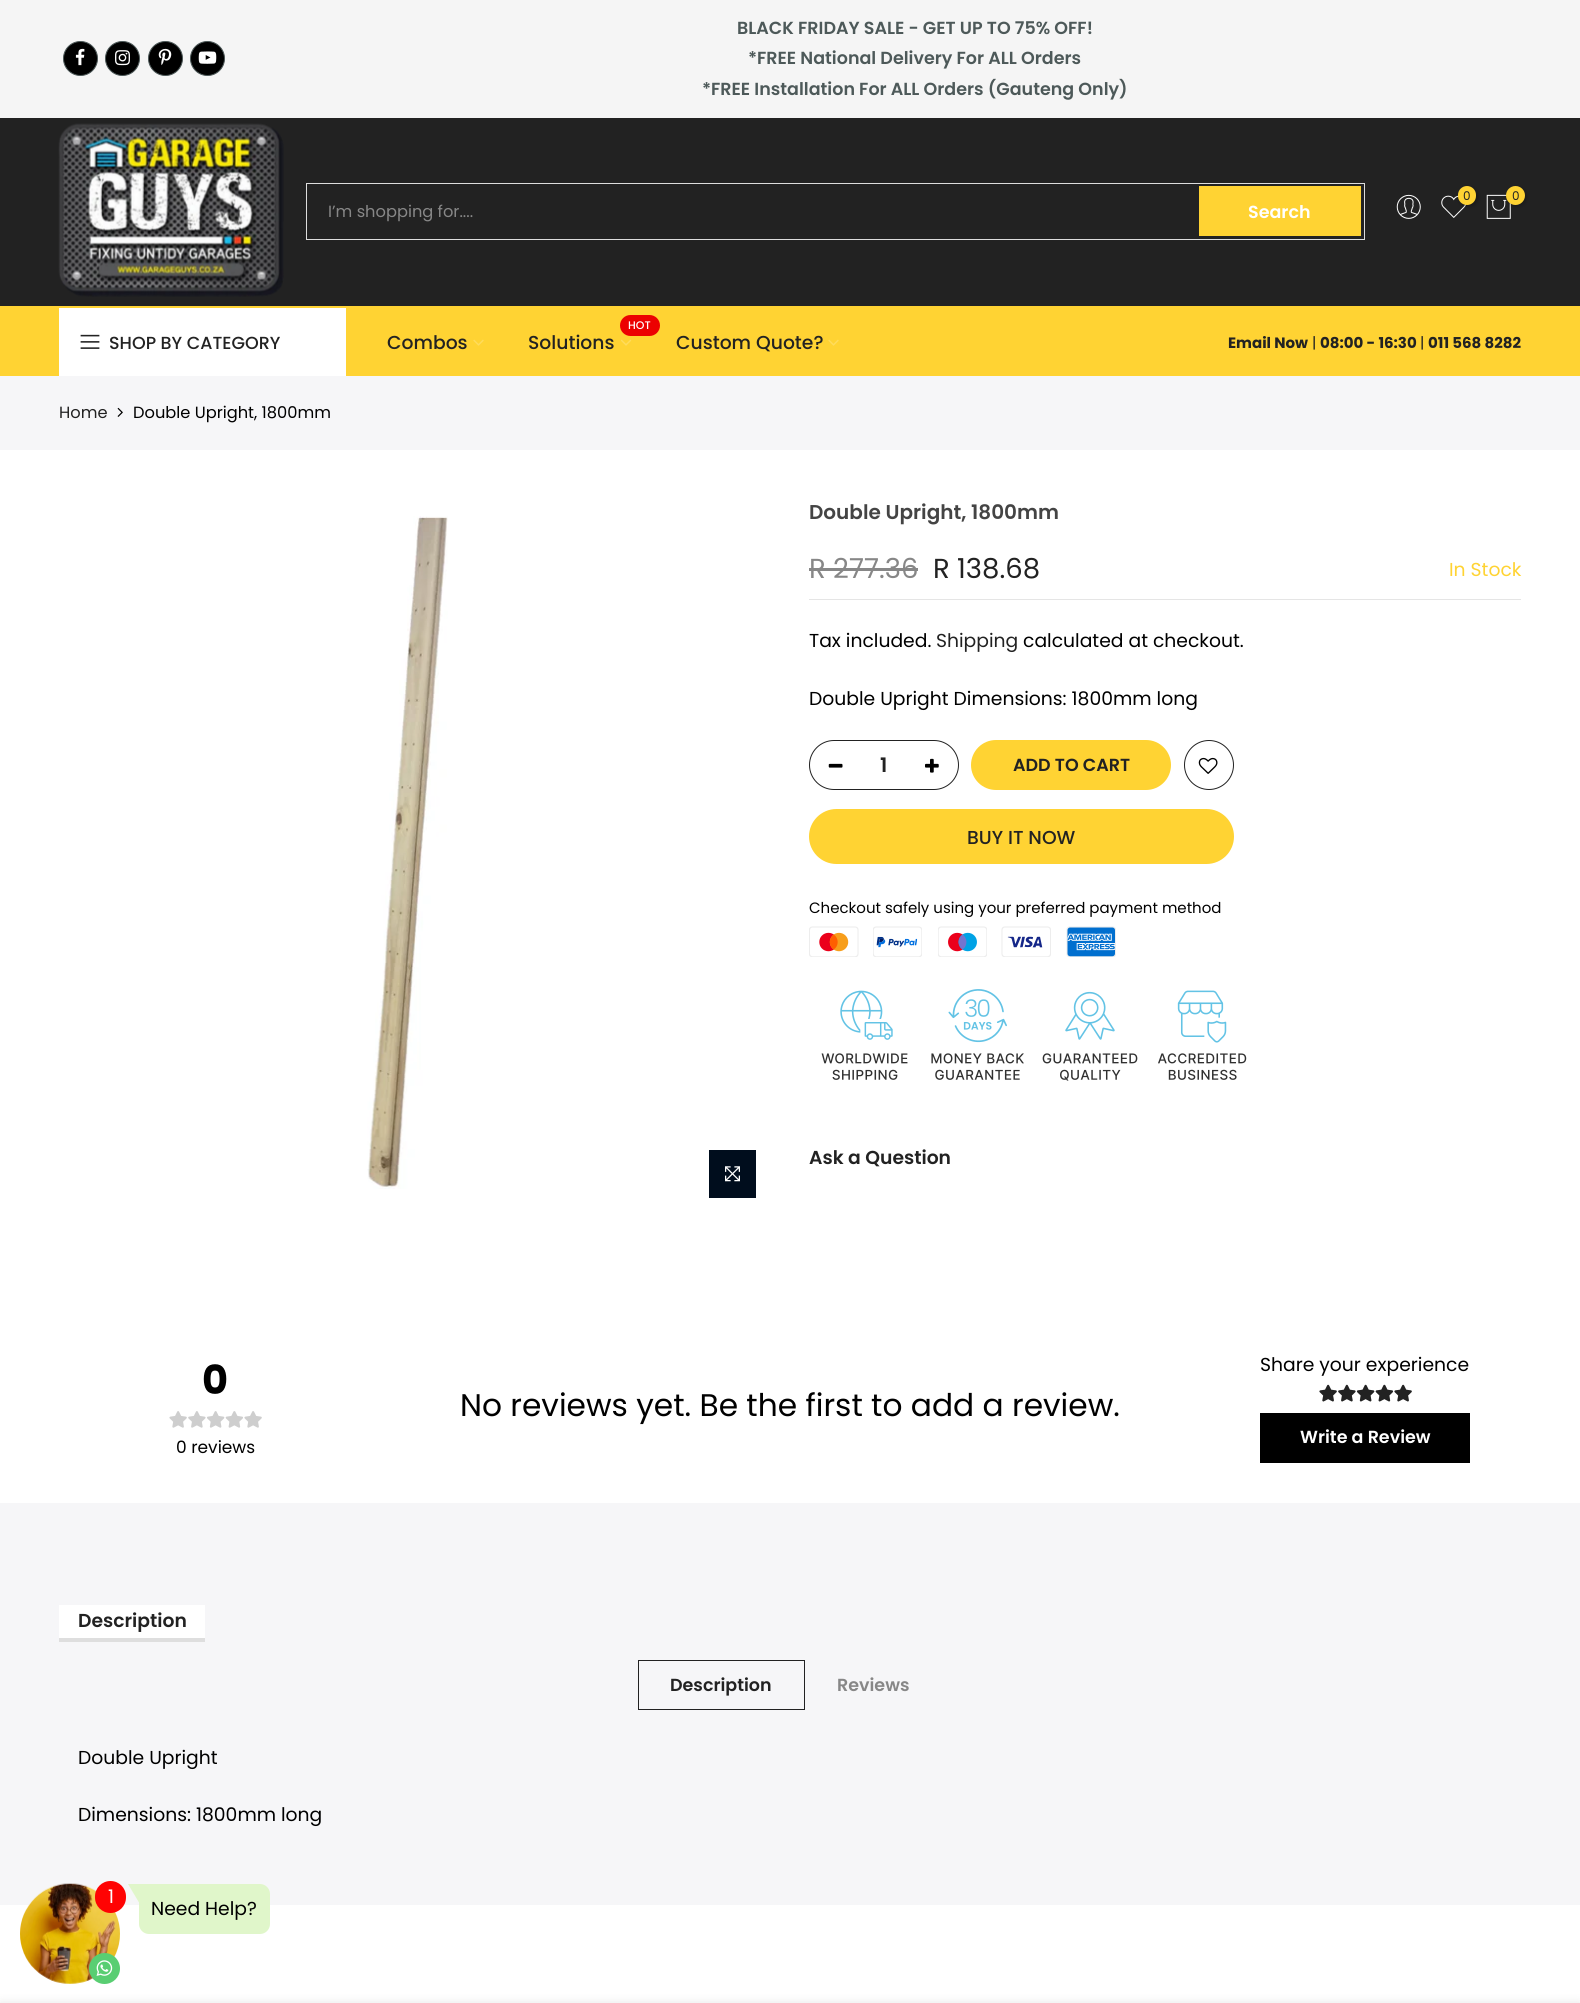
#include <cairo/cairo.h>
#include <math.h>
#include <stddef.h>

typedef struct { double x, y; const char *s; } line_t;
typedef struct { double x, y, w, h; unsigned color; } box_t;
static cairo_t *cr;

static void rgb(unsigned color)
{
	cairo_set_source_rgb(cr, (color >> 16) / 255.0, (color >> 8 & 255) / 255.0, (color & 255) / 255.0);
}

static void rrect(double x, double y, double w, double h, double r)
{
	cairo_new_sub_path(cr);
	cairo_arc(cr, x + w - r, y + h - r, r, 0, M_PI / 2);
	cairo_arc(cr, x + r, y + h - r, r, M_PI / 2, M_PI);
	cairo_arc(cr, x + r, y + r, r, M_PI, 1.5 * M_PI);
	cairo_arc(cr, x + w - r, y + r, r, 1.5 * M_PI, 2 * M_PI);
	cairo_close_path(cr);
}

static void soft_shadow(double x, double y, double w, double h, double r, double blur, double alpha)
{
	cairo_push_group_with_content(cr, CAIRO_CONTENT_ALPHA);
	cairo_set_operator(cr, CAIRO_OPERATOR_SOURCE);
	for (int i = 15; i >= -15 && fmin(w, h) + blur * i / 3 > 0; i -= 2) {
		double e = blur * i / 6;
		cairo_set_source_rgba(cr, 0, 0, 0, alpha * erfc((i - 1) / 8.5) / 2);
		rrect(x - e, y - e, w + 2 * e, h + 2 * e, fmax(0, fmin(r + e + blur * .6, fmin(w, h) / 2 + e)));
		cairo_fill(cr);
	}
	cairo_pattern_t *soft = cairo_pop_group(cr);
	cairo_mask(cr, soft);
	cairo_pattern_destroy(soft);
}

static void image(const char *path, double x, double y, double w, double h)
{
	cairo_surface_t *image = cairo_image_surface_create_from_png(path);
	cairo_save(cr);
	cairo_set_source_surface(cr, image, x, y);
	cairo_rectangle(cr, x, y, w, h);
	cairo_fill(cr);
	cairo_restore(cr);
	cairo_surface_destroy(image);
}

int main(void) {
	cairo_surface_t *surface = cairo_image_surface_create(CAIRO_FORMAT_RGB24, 1580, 2003);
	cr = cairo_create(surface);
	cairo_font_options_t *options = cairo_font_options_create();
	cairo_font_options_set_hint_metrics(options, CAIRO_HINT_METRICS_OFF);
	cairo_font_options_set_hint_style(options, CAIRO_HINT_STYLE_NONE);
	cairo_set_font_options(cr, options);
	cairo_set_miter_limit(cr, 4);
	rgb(0xffffff);
	cairo_paint(cr);
	rgb(0xf5f5f5);
	cairo_rectangle(cr, 0, 0, 1580, 118);
	cairo_fill(cr);
	rgb(0x000000);
	cairo_arc(cr, 80.5, 58.5, 17, 0, 2 * M_PI);
	cairo_fill_preserve(cr);
	rgb(0x4d5959);
	cairo_set_line_width(cr, 1);
	cairo_stroke(cr);
	image("img/1.png", 75, 48, 10, 18);
	rgb(0x000000);
	cairo_arc(cr, 122.5, 58.5, 17, 0, 2 * M_PI);
	cairo_fill_preserve(cr);
	rgb(0x4d5959);
	cairo_stroke(cr);
	image("img/2.png", 115, 50, 15, 16);
	rgb(0x000000);
	cairo_arc(cr, 165.5, 58.5, 17, 0, 2 * M_PI);
	cairo_fill_preserve(cr);
	rgb(0x4d5959);
	cairo_stroke(cr);
	image("img/3.png", 158, 48, 14, 18);
	rgb(0x000000);
	cairo_arc(cr, 207.5, 58.5, 17, 0, 2 * M_PI);
	cairo_fill_preserve(cr);
	rgb(0x4d5959);
	cairo_stroke(cr);
	image("img/4.png", 198, 51, 19, 13);
	rgb(0x222222);
	cairo_rectangle(cr, 0, 118, 1580, 188);
	cairo_fill(cr);
	image("img/5.png", 58, 123, 226, 174);
	image("img/6.png", 1396, 194, 25, 25);
	image("img/7.png", 1441, 195, 25, 23);
	rgb(0x000000);
	soft_shadow(1459, 188, 19, 18, 9, 2, 0.3);
	rgb(0xffd333);
	rrect(1458, 186, 18, 19, 9);
	cairo_fill(cr);
	image("img/8.png", 1486, 194, 25, 25);
	rgb(0x000000);
	soft_shadow(1508, 188, 18, 18, 9, 2, 0.3);
	rgb(0xffd333);
	cairo_arc(cr, 1515.5, 195.5, 9.5, 0, 2 * M_PI);
	cairo_fill(cr);
	cairo_rectangle(cr, 306.5, 183.5, 1058, 56);
	rgb(0xdddddd);
	cairo_stroke(cr);
	{
		static const box_t items[] = {
			{1199, 186, 162, 50, 0xffd333},
			{0, 306, 1580, 70, 0xffd333},
			{59, 308, 287, 68, 0xffffff},
		};
		for (size_t i = 0; i < sizeof items / sizeof *items; i++) {
			rgb(items[i].color);
			cairo_rectangle(cr, items[i].x, items[i].y, items[i].w, items[i].h);
			cairo_fill(cr);
		}
	}
	image("img/9.png", 80, 334, 20, 15);
	image("img/10.png", 473, 339, 11, 7);
	rgb(0xec0101);
	rrect(620, 315, 40, 21, 10.5);
	cairo_fill(cr);
	image("img/11.png", 621, 339, 11, 7);
	image("img/10.png", 828, 339, 11, 7);
	rgb(0xf6f6f8);
	cairo_rectangle(cr, 0, 376, 1580, 74);
	cairo_fill(cr);
	image("img/12.png", 117, 407, 6, 10);
	image("img/13.png", 367, 516, 81, 673);
	rgb(0x000d1d);
	cairo_rectangle(cr, 709, 1150, 47, 48);
	cairo_fill(cr);
	image("img/14.png", 725, 1166, 15, 16);
	rgb(0xe5e5e5);
	cairo_rectangle(cr, 809, 599, 712, 1);
	cairo_fill(cr);
	rgb(0x878787);
	cairo_rectangle(cr, 809, 568, 109, 3);
	cairo_fill(cr);
	rrect(809.5, 740.5, 149, 49, 24.5);
	rgb(0x222222);
	cairo_stroke(cr);
	image("img/15.png", 828, 763, 15, 5);
	image("img/16.png", 925, 758, 14, 15);
	rgb(0xffd333);
	rrect(971, 740, 200, 50, 25);
	cairo_fill(cr);
	cairo_arc(cr, 1209, 765, 24.5, 0, 2 * M_PI);
	rgb(0x222222);
	cairo_stroke(cr);
	image("img/17.png", 1198, 757, 20, 17);
	rgb(0xffd333);
	rrect(809, 809, 425, 55, 27.5);
	cairo_fill(cr);
	image("img/18.png", 809, 926, 50, 31);
	image("img/19.png", 873, 926, 49, 31);
	image("img/20.png", 938, 926, 49, 31);
	image("img/21.png", 1001, 926, 50, 31);
	image("img/22.png", 1066, 926, 50, 31);
	image("img/23.png", 821, 990, 87, 90);
	image("img/24.png", 931, 989, 93, 91);
	image("img/25.png", 1042, 991, 96, 90);
	image("img/26.png", 1158, 990, 89, 90);
	image("img/27.png", 169, 1411, 18, 17);
	image("img/28.png", 188, 1411, 18, 17);
	image("img/29.png", 207, 1411, 18, 17);
	image("img/30.png", 225, 1411, 18, 17);
	image("img/27.png", 244, 1411, 18, 17);
	image("img/31.png", 1319, 1384, 18, 18);
	image("img/32.png", 1338, 1384, 18, 18);
	image("img/33.png", 1357, 1384, 18, 18);
	image("img/34.png", 1375, 1384, 18, 18);
	image("img/31.png", 1394, 1384, 18, 18);
	image("img/35.png", 1319, 1384, 18, 18);
	image("img/36.png", 1338, 1384, 18, 18);
	image("img/37.png", 1356, 1384, 19, 18);
	image("img/38.png", 1375, 1384, 19, 18);
	image("img/35.png", 1394, 1384, 18, 18);
	{
		static const box_t items[] = {
			{1260, 1413, 210, 50, 0x000000},
			{0, 1503, 1580, 402, 0xf6f6f8},
			{59, 1605, 146, 33, 0xffffff},
			{59, 1638, 146, 4, 0xdedede},
		};
		for (size_t i = 0; i < sizeof items / sizeof *items; i++) {
			rgb(items[i].color);
			cairo_rectangle(cr, items[i].x, items[i].y, items[i].w, items[i].h);
			cairo_fill(cr);
		}
	}
	cairo_rectangle(cr, 638.5, 1660.5, 166, 49);
	rgb(0x222222);
	cairo_stroke(cr);
	image("img/39.png", 20, 1883, 100, 101);
	rgb(0x59ce72);
	cairo_arc(cr, 104.5, 1968.5, 15.5, 0, 2 * M_PI);
	cairo_fill(cr);
	image("img/40.png", 96, 1960, 17, 16);
	rgb(0xff0303);
	rrect(95, 1881, 31, 32, 15.5);
	cairo_fill(cr);
	rgb(0xe0f6ca);
	cairo_new_path(cr);
	cairo_move_to(cr, 139, 1884);
	cairo_line_to(cr, 260, 1884);
	cairo_curve_to(cr, 265.5, 1884, 270, 1888.5, 270, 1894);
	cairo_line_to(cr, 270, 1924);
	cairo_curve_to(cr, 270, 1929.5, 265.5, 1934, 260, 1934);
	cairo_line_to(cr, 149, 1934);
	cairo_curve_to(cr, 143.5, 1934, 139, 1929.5, 139, 1924);
	cairo_close_path(cr);
	cairo_fill(cr);
	cairo_new_path(cr);
	cairo_move_to(cr, 128, 1884);
	cairo_line_to(cr, 139, 1884);
	cairo_line_to(cr, 139, 1902.5);
	cairo_close_path(cr);
	cairo_fill(cr);
	rgb(0x000000);
	soft_shadow(0, 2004, 1580, 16, 0, 5.5, 0.12);
	cairo_select_font_face(cr, "Poppins SemiBold", CAIRO_FONT_SLANT_NORMAL, CAIRO_FONT_WEIGHT_NORMAL);
	cairo_set_font_size(cr, 17.5);
	rgb(0x4d5959);
	{
		static const line_t items[] = {
			{737, 34, "BLACK FRIDAY SALE - GET UP TO 75% OFF!"},
			{748, 64, "*FREE National Delivery For ALL Orders"},
			{702, 95, "*FREE Installation For ALL Orders (Gauteng Only)"},
		};
		for (size_t i = 0; i < sizeof items / sizeof *items; i++) {
			cairo_move_to(cr, items[i].x, items[i].y);
			cairo_show_text(cr, items[i].s);
		}
	}
	cairo_select_font_face(cr, "Poppins", CAIRO_FONT_SLANT_NORMAL, CAIRO_FONT_WEIGHT_NORMAL);
	cairo_set_font_size(cr, 12);
	rgb(0x222222);
	cairo_move_to(cr, 1463, 200);
	cairo_show_text(cr, "0");
	cairo_move_to(cr, 1512, 200);
	cairo_show_text(cr, "0");
	cairo_set_font_size(cr, 16.25);
	rgb(0x878787);
	cairo_move_to(cr, 328, 217);
	cairo_show_text(cr, "I’m shopping for....");
	cairo_select_font_face(cr, "Poppins SemiBold", CAIRO_FONT_SLANT_NORMAL, CAIRO_FONT_WEIGHT_NORMAL);
	cairo_set_font_size(cr, 17.5);
	rgb(0xffffff);
	cairo_move_to(cr, 1248, 218);
	cairo_show_text(cr, "Search");
	cairo_select_font_face(cr, "Poppins Medium", CAIRO_FONT_SLANT_NORMAL, CAIRO_FONT_WEIGHT_NORMAL);
	rgb(0x222222);
	cairo_move_to(cr, 109, 349);
	cairo_show_text(cr, "SHOP BY CATEGORY");
	cairo_set_font_size(cr, 18.75);
	cairo_move_to(cr, 387, 349);
	cairo_show_text(cr, "Combos");
	cairo_set_font_size(cr, 11);
	rgb(0xffffff);
	cairo_move_to(cr, 628, 329);
	cairo_show_text(cr, "HOT");
	cairo_set_font_size(cr, 18.75);
	rgb(0x222222);
	cairo_move_to(cr, 528, 349);
	cairo_show_text(cr, "Solutions");
	cairo_move_to(cr, 676, 349);
	cairo_show_text(cr, "Custom Quote?");
	cairo_select_font_face(cr, "Poppins", CAIRO_FONT_SLANT_NORMAL, CAIRO_FONT_WEIGHT_BOLD);
	cairo_set_font_size(cr, 15);
	cairo_move_to(cr, 1228, 348);
	cairo_show_text(cr, "Email Now");
	cairo_select_font_face(cr, "Poppins", CAIRO_FONT_SLANT_NORMAL, CAIRO_FONT_WEIGHT_NORMAL);
	cairo_move_to(cr, 1312, 348);
	cairo_show_text(cr, "|");
	cairo_select_font_face(cr, "Poppins", CAIRO_FONT_SLANT_NORMAL, CAIRO_FONT_WEIGHT_BOLD);
	cairo_move_to(cr, 1320, 348);
	cairo_show_text(cr, "08:00 - 16:30");
	cairo_select_font_face(cr, "Poppins", CAIRO_FONT_SLANT_NORMAL, CAIRO_FONT_WEIGHT_NORMAL);
	cairo_move_to(cr, 1420, 348);
	cairo_show_text(cr, "|");
	cairo_select_font_face(cr, "Poppins", CAIRO_FONT_SLANT_NORMAL, CAIRO_FONT_WEIGHT_BOLD);
	cairo_move_to(cr, 1428, 348);
	cairo_show_text(cr, "011 568 8282");
	cairo_select_font_face(cr, "Poppins", CAIRO_FONT_SLANT_NORMAL, CAIRO_FONT_WEIGHT_NORMAL);
	cairo_set_font_size(cr, 16.25);
	cairo_move_to(cr, 59, 418);
	cairo_show_text(cr, "Home");
	rgb(0x000000);
	cairo_move_to(cr, 133, 418);
	cairo_show_text(cr, "Double Upright, 1800mm");
	cairo_select_font_face(cr, "Poppins SemiBold", CAIRO_FONT_SLANT_NORMAL, CAIRO_FONT_WEIGHT_NORMAL);
	cairo_set_font_size(cr, 20);
	rgb(0x444444);
	cairo_move_to(cr, 809, 519);
	cairo_show_text(cr, "Double Upright, 1800mm");
	cairo_select_font_face(cr, "Poppins", CAIRO_FONT_SLANT_NORMAL, CAIRO_FONT_WEIGHT_NORMAL);
	cairo_set_font_size(cr, 27.5);
	rgb(0x878787);
	cairo_move_to(cr, 809, 578);
	cairo_show_text(cr, "R 277.36");
	rgb(0x222222);
	cairo_move_to(cr, 933, 578);
	cairo_show_text(cr, "R 138.68");
	cairo_set_font_size(cr, 18.75);
	rgb(0xffd333);
	cairo_move_to(cr, 1449, 576);
	cairo_show_text(cr, "In Stock");
	rgb(0x000000);
	cairo_move_to(cr, 809, 647);
	cairo_show_text(cr, "Tax included.");
	rgb(0x222222);
	cairo_move_to(cr, 936, 647);
	cairo_show_text(cr, "Shipping");
	rgb(0x000000);
	cairo_move_to(cr, 1023, 647);
	cairo_show_text(cr, "calculated at checkout.");
	cairo_move_to(cr, 809, 705);
	cairo_show_text(cr, "Double Upright Dimensions: 1800mm long");
	cairo_select_font_face(cr, "Poppins SemiBold", CAIRO_FONT_SLANT_NORMAL, CAIRO_FONT_WEIGHT_NORMAL);
	cairo_set_font_size(cr, 20);
	rgb(0x222222);
	cairo_move_to(cr, 880, 772);
	cairo_show_text(cr, "1");
	cairo_set_font_size(cr, 17.5);
	cairo_move_to(cr, 1013, 771);
	cairo_show_text(cr, "ADD TO CART");
	cairo_select_font_face(cr, "Poppins Medium", CAIRO_FONT_SLANT_NORMAL, CAIRO_FONT_WEIGHT_NORMAL);
	cairo_set_font_size(cr, 18.75);
	cairo_move_to(cr, 967, 844);
	cairo_show_text(cr, "BUY IT NOW");
	cairo_select_font_face(cr, "Poppins", CAIRO_FONT_SLANT_NORMAL, CAIRO_FONT_WEIGHT_NORMAL);
	cairo_set_font_size(cr, 15);
	rgb(0x000000);
	cairo_move_to(cr, 809, 913);
	cairo_show_text(cr, "Checkout safely using your preferred payment method");
	cairo_select_font_face(cr, "Poppins SemiBold", CAIRO_FONT_SLANT_NORMAL, CAIRO_FONT_WEIGHT_NORMAL);
	cairo_set_font_size(cr, 18.75);
	rgb(0x222222);
	cairo_move_to(cr, 809, 1164);
	cairo_show_text(cr, "Ask a Question");
	cairo_select_font_face(cr, "Poppins", CAIRO_FONT_SLANT_NORMAL, CAIRO_FONT_WEIGHT_BOLD);
	cairo_set_font_size(cr, 40);
	rgb(0x000000);
	cairo_move_to(cr, 202, 1394);
	cairo_show_text(cr, "0");
	cairo_select_font_face(cr, "Poppins", CAIRO_FONT_SLANT_NORMAL, CAIRO_FONT_WEIGHT_NORMAL);
	cairo_set_font_size(cr, 17);
	cairo_move_to(cr, 176, 1453);
	cairo_show_text(cr, "0 reviews");
	cairo_set_font_size(cr, 31.25);
	cairo_move_to(cr, 460, 1416);
	cairo_show_text(cr, "No reviews yet. Be the first to add a review.");
	cairo_set_font_size(cr, 18.75);
	cairo_move_to(cr, 1260, 1371);
	cairo_show_text(cr, "Share your experience");
	cairo_select_font_face(cr, "Poppins SemiBold", CAIRO_FONT_SLANT_NORMAL, CAIRO_FONT_WEIGHT_NORMAL);
	cairo_set_font_size(cr, 17.5);
	rgb(0xffffff);
	cairo_move_to(cr, 1300, 1443);
	cairo_show_text(cr, "Write a Review");
	cairo_set_font_size(cr, 18.75);
	rgb(0x222222);
	cairo_move_to(cr, 78, 1627);
	cairo_show_text(cr, "Description");
	cairo_set_font_size(cr, 17.5);
	cairo_move_to(cr, 670, 1691);
	cairo_show_text(cr, "Description");
	rgb(0x878787);
	cairo_move_to(cr, 837, 1691);
	cairo_show_text(cr, "Reviews");
	cairo_select_font_face(cr, "Poppins", CAIRO_FONT_SLANT_NORMAL, CAIRO_FONT_WEIGHT_NORMAL);
	cairo_set_font_size(cr, 18.75);
	rgb(0x000000);
	cairo_move_to(cr, 78, 1764);
	cairo_show_text(cr, "Double Upright");
	cairo_move_to(cr, 78, 1821);
	cairo_show_text(cr, "Dimensions: 1800mm long");
	rgb(0xffffff);
	cairo_move_to(cr, 108, 1903);
	cairo_show_text(cr, "1");
	rgb(0x000000);
	cairo_move_to(cr, 151, 1915);
	cairo_show_text(cr, "Need Help?");
	cairo_surface_write_to_png(surface, "page.png");
	cairo_font_options_destroy(options);
	cairo_destroy(cr);
	cairo_surface_destroy(surface);
	return 0;
}
